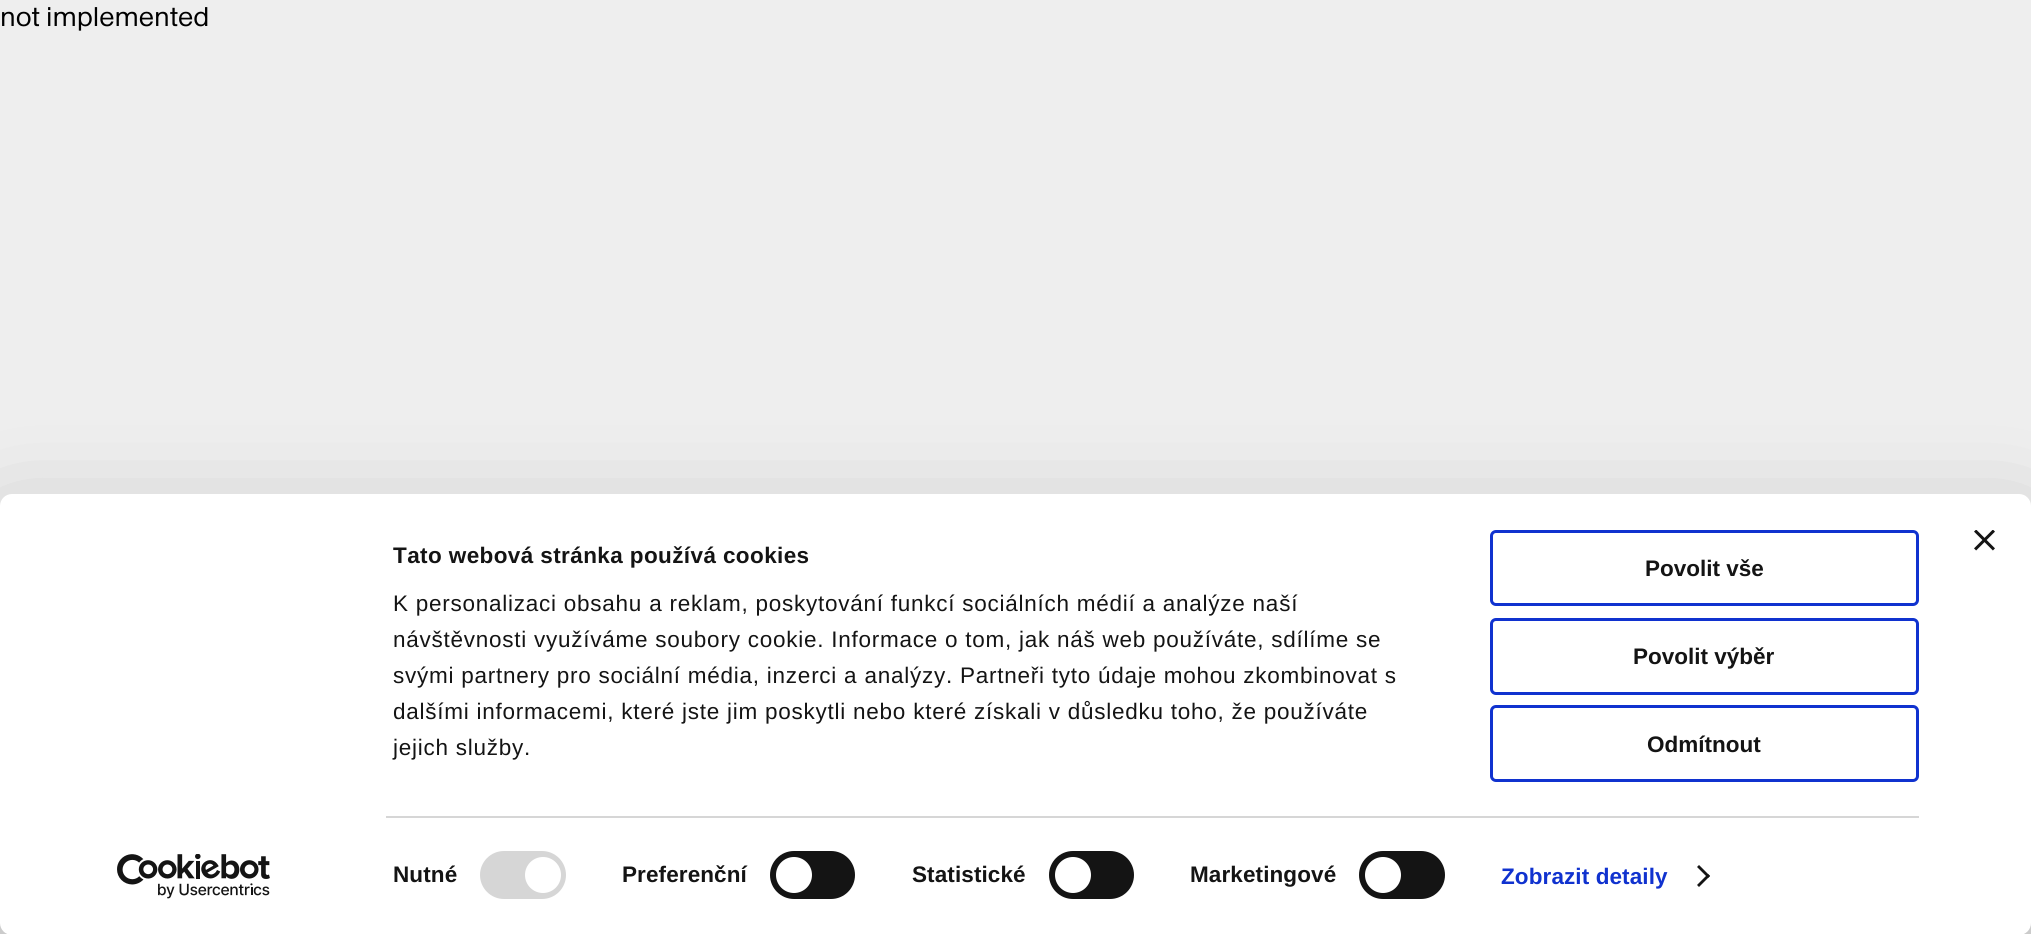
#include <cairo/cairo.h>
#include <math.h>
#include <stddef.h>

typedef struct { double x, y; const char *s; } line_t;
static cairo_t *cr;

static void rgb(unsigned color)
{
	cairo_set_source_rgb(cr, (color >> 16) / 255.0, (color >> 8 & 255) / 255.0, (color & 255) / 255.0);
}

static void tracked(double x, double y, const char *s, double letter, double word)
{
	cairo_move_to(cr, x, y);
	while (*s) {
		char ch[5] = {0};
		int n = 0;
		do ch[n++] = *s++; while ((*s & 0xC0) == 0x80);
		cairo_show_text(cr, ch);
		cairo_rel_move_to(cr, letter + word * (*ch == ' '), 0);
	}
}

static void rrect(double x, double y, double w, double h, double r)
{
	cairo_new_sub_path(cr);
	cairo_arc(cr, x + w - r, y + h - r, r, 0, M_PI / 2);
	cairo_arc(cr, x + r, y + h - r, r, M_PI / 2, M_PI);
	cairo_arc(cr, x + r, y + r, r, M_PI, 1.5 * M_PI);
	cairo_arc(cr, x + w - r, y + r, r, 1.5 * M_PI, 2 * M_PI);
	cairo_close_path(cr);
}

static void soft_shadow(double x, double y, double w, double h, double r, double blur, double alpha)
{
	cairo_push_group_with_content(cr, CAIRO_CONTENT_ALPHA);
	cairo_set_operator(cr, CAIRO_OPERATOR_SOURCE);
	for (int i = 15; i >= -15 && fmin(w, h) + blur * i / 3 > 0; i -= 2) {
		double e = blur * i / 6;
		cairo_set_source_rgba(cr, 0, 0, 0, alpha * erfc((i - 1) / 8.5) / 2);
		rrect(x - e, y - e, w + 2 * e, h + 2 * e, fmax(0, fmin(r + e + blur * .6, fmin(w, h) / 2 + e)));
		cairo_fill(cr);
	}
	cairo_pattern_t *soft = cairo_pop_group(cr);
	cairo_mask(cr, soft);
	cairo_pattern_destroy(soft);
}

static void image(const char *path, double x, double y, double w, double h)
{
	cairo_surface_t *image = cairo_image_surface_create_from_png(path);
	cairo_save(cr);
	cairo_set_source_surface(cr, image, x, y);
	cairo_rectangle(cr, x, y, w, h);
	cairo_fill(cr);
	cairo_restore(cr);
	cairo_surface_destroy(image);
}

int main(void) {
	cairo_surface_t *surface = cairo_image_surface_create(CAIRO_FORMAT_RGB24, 2031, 934);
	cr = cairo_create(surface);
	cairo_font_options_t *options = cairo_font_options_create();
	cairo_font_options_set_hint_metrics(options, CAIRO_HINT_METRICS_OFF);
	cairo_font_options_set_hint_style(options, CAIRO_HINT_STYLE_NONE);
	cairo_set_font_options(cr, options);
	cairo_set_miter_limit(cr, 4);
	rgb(0xeeeeee);
	cairo_paint(cr);
	rgb(0x000000);
	soft_shadow(0, 539, 2031, 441, 12, 52.5, 0.3);
	rgb(0xffffff);
	rrect(0, 494, 2031, 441, 12);
	cairo_fill(cr);
	image("img/1.png", 1974, 530, 21, 21);
	rgb(0xd6d6d6);
	cairo_rectangle(cr, 386, 816, 1533, 2);
	cairo_fill(cr);
	rrect(480, 851, 86, 48, 24);
	cairo_fill(cr);
	rgb(0xffffff);
	cairo_arc(cr, 543, 875, 18, 0, 2 * M_PI);
	cairo_fill(cr);
	rgb(0x141414);
	rrect(770, 851, 85, 48, 24);
	cairo_fill(cr);
	rgb(0xffffff);
	cairo_arc(cr, 794, 875, 18, 0, 2 * M_PI);
	cairo_fill(cr);
	rgb(0x141414);
	rrect(1049, 851, 85, 48, 24);
	cairo_fill(cr);
	rgb(0xffffff);
	cairo_arc(cr, 1073, 875, 18, 0, 2 * M_PI);
	cairo_fill(cr);
	rgb(0x141414);
	rrect(1359, 851, 86, 48, 24);
	cairo_fill(cr);
	rgb(0xffffff);
	cairo_arc(cr, 1383, 875, 18, 0, 2 * M_PI);
	cairo_fill(cr);
	rgb(0x141414);
	cairo_new_path(cr);
	cairo_move_to(cr, 1699, 865);
	cairo_line_to(cr, 1710, 876);
	cairo_line_to(cr, 1708, 878);
	cairo_line_to(cr, 1697, 867);
	cairo_close_path(cr);
	cairo_fill(cr);
	cairo_new_path(cr);
	cairo_move_to(cr, 1708, 874);
	cairo_line_to(cr, 1710, 876);
	cairo_line_to(cr, 1699, 887);
	cairo_line_to(cr, 1697, 885);
	cairo_close_path(cr);
	cairo_fill(cr);
	rrect(1491.5, 531.5, 426, 73, 4.5);
	rgb(0x1032cf);
	cairo_set_line_width(cr, 3);
	cairo_stroke(cr);
	rrect(1491.5, 619.5, 426, 74, 4.5);
	cairo_stroke(cr);
	rrect(1491.5, 706.5, 426, 74, 4.5);
	cairo_stroke(cr);
	image("img/2.png", 117, 854, 153, 45);
	cairo_select_font_face(cr, "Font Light", CAIRO_FONT_SLANT_NORMAL, CAIRO_FONT_WEIGHT_NORMAL);
	cairo_set_font_size(cr, 27);
	rgb(0x000000);
	cairo_move_to(cr, 0, 26);
	cairo_show_text(cr, "not implemented");
	cairo_select_font_face(cr, "Liberation Sans", CAIRO_FONT_SLANT_NORMAL, CAIRO_FONT_WEIGHT_BOLD);
	cairo_set_font_size(cr, 22.5);
	rgb(0x141414);
	tracked(393, 563, "Tato webová stránka používá cookies", 0.4, 0);
	cairo_select_font_face(cr, "Liberation Sans", CAIRO_FONT_SLANT_NORMAL, CAIRO_FONT_WEIGHT_NORMAL);
	{
		static const line_t items[] = {
			{393, 611, "K personalizaci obsahu a reklam, poskytování funkcí sociálních médií a analýze naší"},
			{393, 647, "návštěvnosti využíváme soubory cookie. Informace o tom, jak náš web používáte, sdílíme se"},
			{393, 683, "svými partnery pro sociální média, inzerci a analýzy. Partneři tyto údaje mohou zkombinovat s"},
			{393, 719, "dalšími informacemi, které jste jim poskytli nebo které získali v důsledku toho, že používáte"},
			{393, 755, "jejich služby."},
		};
		for (size_t i = 0; i < sizeof items / sizeof *items; i++) {
			tracked(items[i].x, items[i].y, items[i].s, 0.75, 0);
		}
	}
	cairo_select_font_face(cr, "Liberation Sans", CAIRO_FONT_SLANT_NORMAL, CAIRO_FONT_WEIGHT_BOLD);
	{
		static const line_t items[] = {
			{393, 882, "Nutné"},
			{622, 882, "Preferenční"},
			{912, 882, "Statistické"},
			{1190, 882, "Marketingové"},
		};
		for (size_t i = 0; i < sizeof items / sizeof *items; i++) {
			tracked(items[i].x, items[i].y, items[i].s, 0.1, 0);
		}
	}
	rgb(0x1032cf);
	tracked(1501, 884, "Zobrazit detaily", 0.1, 0);
	rgb(0x141414);
	{
		static const line_t items[] = {
			{1645, 576, "Povolit vše"},
			{1633, 664, "Povolit výběr"},
			{1647, 752, "Odmítnout"},
		};
		for (size_t i = 0; i < sizeof items / sizeof *items; i++) {
			cairo_move_to(cr, items[i].x, items[i].y);
			cairo_show_text(cr, items[i].s);
		}
	}
	cairo_surface_write_to_png(surface, "page.png");
	cairo_font_options_destroy(options);
	cairo_destroy(cr);
	cairo_surface_destroy(surface);
	return 0;
}
